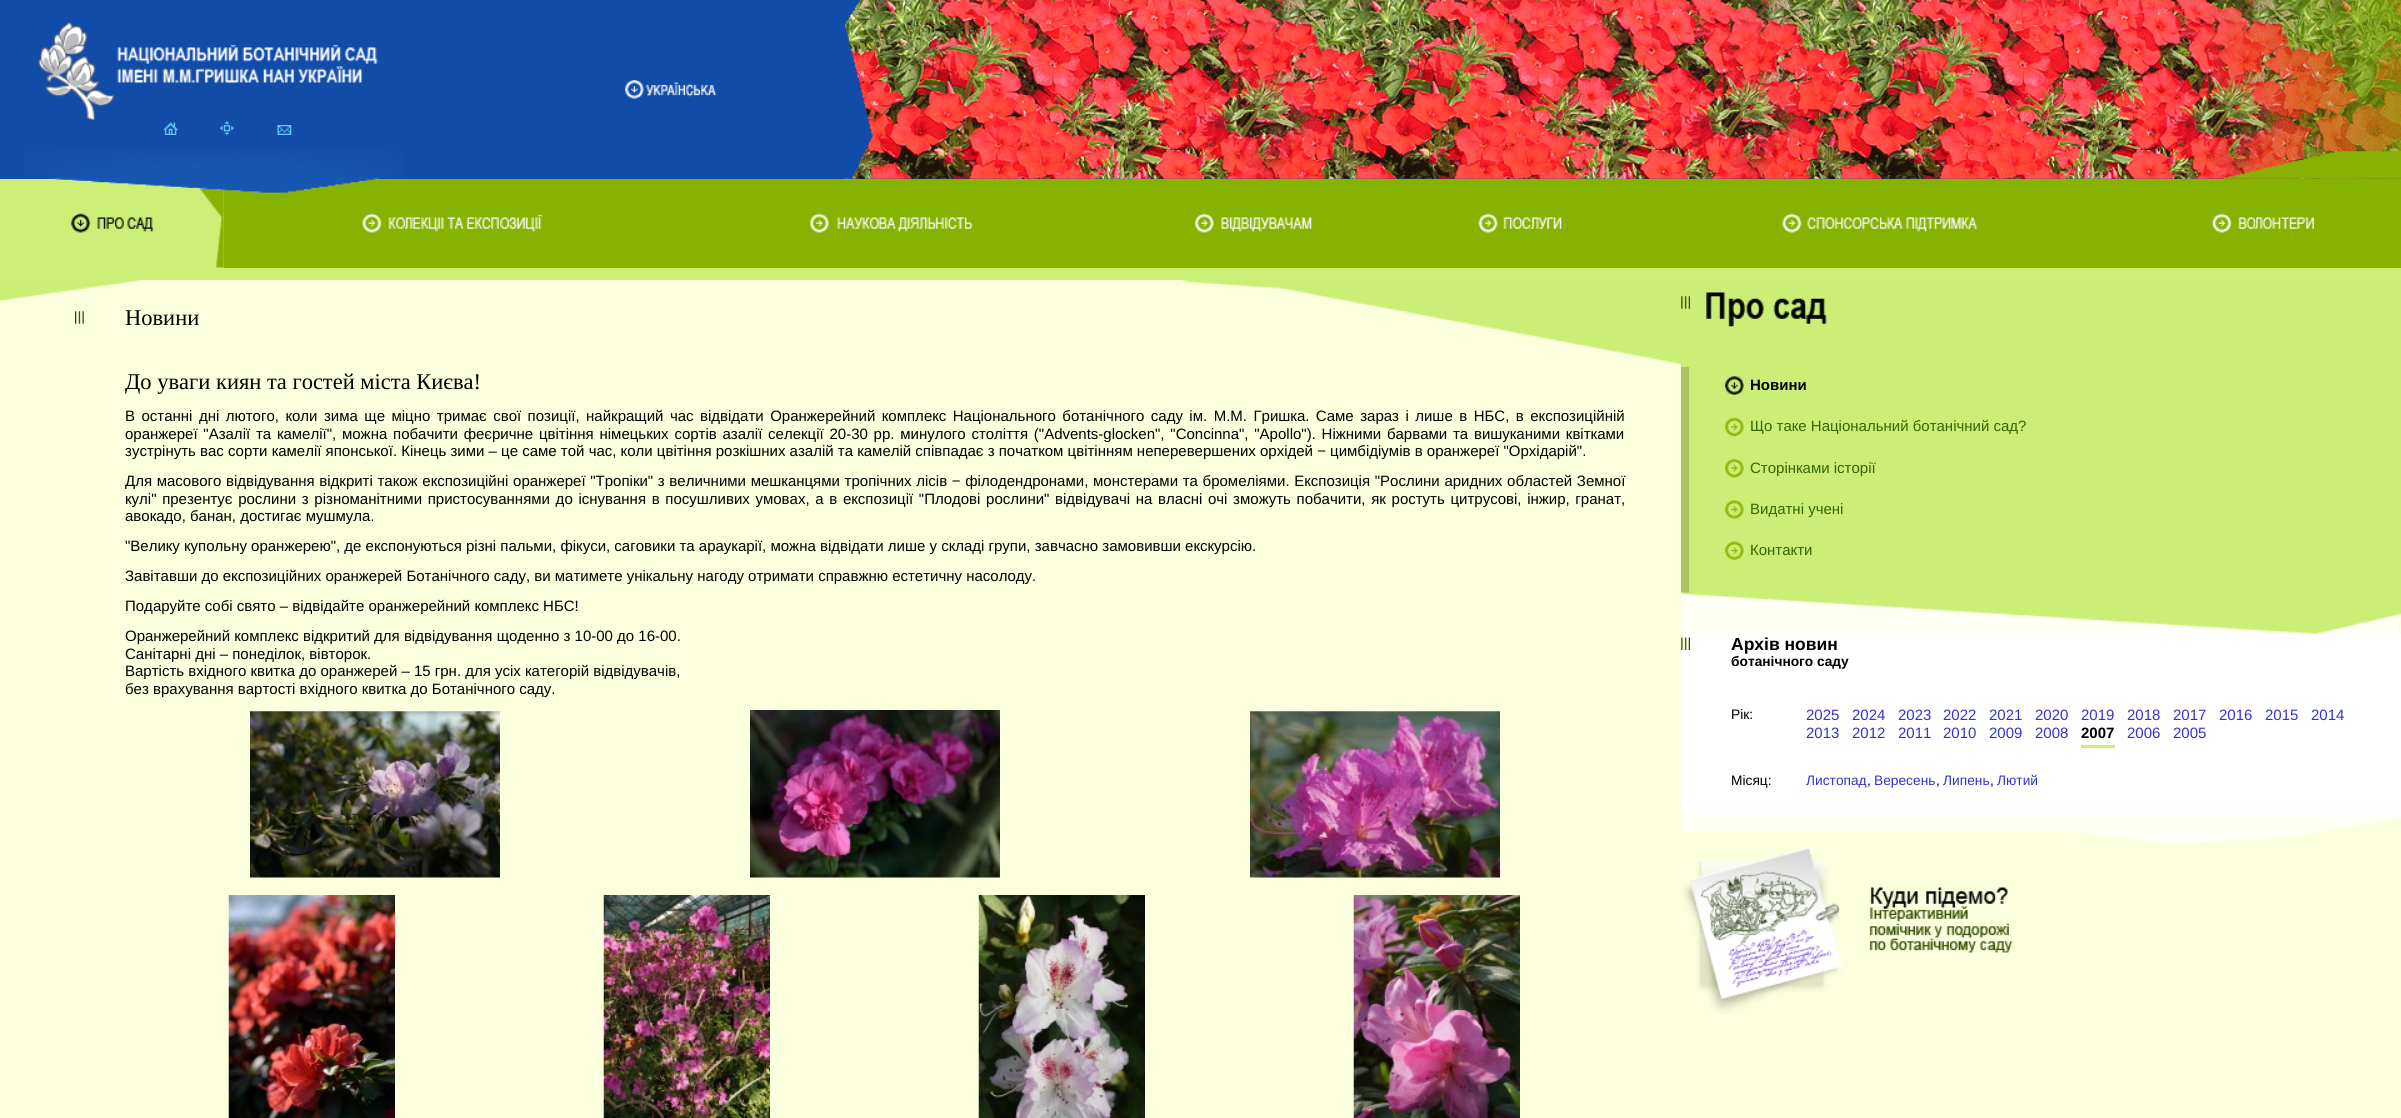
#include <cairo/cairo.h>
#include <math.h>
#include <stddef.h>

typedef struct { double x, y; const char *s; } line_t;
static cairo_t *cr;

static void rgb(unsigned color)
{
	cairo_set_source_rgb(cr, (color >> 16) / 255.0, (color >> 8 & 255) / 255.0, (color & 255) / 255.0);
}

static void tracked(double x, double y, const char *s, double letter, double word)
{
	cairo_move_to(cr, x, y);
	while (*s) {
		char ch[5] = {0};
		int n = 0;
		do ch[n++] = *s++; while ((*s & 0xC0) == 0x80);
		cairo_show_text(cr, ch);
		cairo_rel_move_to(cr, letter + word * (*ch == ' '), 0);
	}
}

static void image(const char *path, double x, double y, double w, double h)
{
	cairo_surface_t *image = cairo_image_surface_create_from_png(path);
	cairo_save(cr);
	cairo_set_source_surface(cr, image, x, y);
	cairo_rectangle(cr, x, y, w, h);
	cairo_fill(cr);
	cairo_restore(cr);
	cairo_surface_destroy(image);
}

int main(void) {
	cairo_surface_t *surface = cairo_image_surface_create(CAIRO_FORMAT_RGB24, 2401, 1118);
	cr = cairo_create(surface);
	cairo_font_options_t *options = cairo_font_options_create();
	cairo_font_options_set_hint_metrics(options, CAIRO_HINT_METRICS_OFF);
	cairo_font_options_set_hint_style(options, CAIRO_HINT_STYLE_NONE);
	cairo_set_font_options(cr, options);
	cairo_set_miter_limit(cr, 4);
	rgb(0x114ca9);
	cairo_paint(cr);
	image("img/1.png", 24, 148, 380, 30);
	image("img/2.png", 38, 22, 340, 99);
	image("img/3.png", 163, 122, 15, 13);
	image("img/4.png", 220, 121, 14, 14);
	image("img/5.png", 277, 125, 15, 10);
	rgb(0x86b202);
	cairo_rectangle(cr, 224, 179, 2177, 89);
	cairo_fill(cr);
	rgb(0xccef77);
	cairo_rectangle(cr, 0, 179, 224, 89);
	cairo_fill(cr);
	image("img/11.png", 192, 187, 32, 81);
	image("img/6.png", 46, 177, 335, 16);
	image("img/7.png", 625, 80, 92, 19);
	image("img/8.png", 840, 0, 1561, 179);
	image("img/9.png", 2223, 151, 178, 28);
	image("img/10.png", 840, 0, 33, 179);
	image("img/12.png", 71, 213, 82, 20);
	image("img/13.png", 362, 213, 181, 20);
	image("img/14.png", 810, 213, 163, 20);
	image("img/15.png", 1195, 213, 117, 20);
	image("img/16.png", 1478, 213, 84, 20);
	image("img/17.png", 1782, 213, 196, 20);
	image("img/18.png", 2212, 213, 102, 20);
	cairo_rectangle(cr, 0, 268, 2401, 12);
	cairo_fill(cr);
	rgb(0xfcffde);
	cairo_rectangle(cr, 0, 280, 2401, 838);
	cairo_fill(cr);
	image("img/19.png", 0, 280, 142, 22);
	image("img/20.png", 1181, 280, 500, 84);
	image("img/21.png", 75, 311, 9, 13);
	image("img/22.png", 250, 711, 250, 167);
	image("img/23.png", 750, 710, 250, 168);
	image("img/24.png", 1250, 711, 250, 167);
	image("img/25.png", 228, 895, 167, 223);
	image("img/26.png", 603, 895, 167, 223);
	image("img/27.png", 978, 895, 167, 223);
	image("img/28.png", 1353, 895, 167, 223);
	rgb(0xcbef76);
	cairo_rectangle(cr, 1681, 280, 720, 88);
	cairo_fill(cr);
	image("img/29.png", 1681, 296, 9, 13);
	image("img/30.png", 1706, 292, 121, 35);
	cairo_rectangle(cr, 1689, 368, 712, 225);
	cairo_fill(cr);
	rgb(0xa6c55e);
	cairo_rectangle(cr, 1681, 367, 8, 226);
	cairo_fill(cr);
	image("img/31.png", 1725, 376, 19, 19);
	image("img/32.png", 1725, 417, 19, 20);
	image("img/33.png", 1725, 458, 19, 20);
	image("img/34.png", 1725, 500, 19, 19);
	image("img/35.png", 1725, 541, 19, 19);
	image("img/36.png", 1681, 592, 720, 42);
	rgb(0xffffff);
	cairo_rectangle(cr, 1681, 634, 720, 179);
	cairo_fill(cr);
	image("img/37.png", 1681, 637, 9, 13);
	rgb(0xcbef76);
	cairo_rectangle(cr, 2081, 745, 34, 3);
	cairo_fill(cr);
	image("img/38.png", 1681, 812, 720, 33);
	image("img/39.png", 1682, 847, 161, 168);
	image("img/40.png", 1869, 887, 144, 66);
	cairo_select_font_face(cr, "Liberation Serif", CAIRO_FONT_SLANT_NORMAL, CAIRO_FONT_WEIGHT_NORMAL);
	cairo_set_font_size(cr, 22.5);
	rgb(0x000000);
	cairo_move_to(cr, 125, 325);
	cairo_show_text(cr, "Новини");
	cairo_move_to(cr, 125, 389);
	cairo_show_text(cr, "До уваги киян та гостей міста Києва!");
	cairo_select_font_face(cr, "Liberation Sans", CAIRO_FONT_SLANT_NORMAL, CAIRO_FONT_WEIGHT_NORMAL);
	cairo_set_font_size(cr, 15);
	tracked(125, 421, "В останні дні лютого, коли зима ще міцно тримає свої позиції, найкращий час відвідати Оранжерейний комплекс Національного ботанічного саду ім. М.М. Гришка. Саме зараз і лише в НБС, в експозиційній", 0, 2.3);
	tracked(125, 439, "оранжереї \"Азалії та камелії\", можна побачити феєричне цвітіння німецьких сортів азалії селекції 20-30 рр. минулого століття (\"Advents-glocken\", \"Concinna\", \"Apollo\"). Ніжними барвами та вишуканими квітками", 0, 1.6);
	cairo_move_to(cr, 125, 456);
	cairo_show_text(cr, "зустрінуть вас сорти камелії японської. Кінець зими – це саме той час, коли цвітіння розкішних азалій та камелій співпадає з початком цвітінням неперевершених орхідей − цимбідіумів в оранжереї \"Орхідарій\".");
	tracked(125, 486, "Для масового відвідування відкриті також експозиційні оранжереї \"Тропіки\" з величними мешканцями тропічних лісів − філодендронами, монстерами та бромеліями. Експозиція \"Рослини аридних областей Земної", 0, 0.5);
	tracked(125, 504, "кулі\" презентує рослини з різноманітними пристосуваннями до існування в посушливих умовах, а в експозиції \"Плодові рослини\" відвідувачі на власні очі зможуть побачити, як ростуть цитрусові, інжир, гранат,", 0, 1.5);
	{
		static const line_t items[] = {
			{125, 521, "авокадо, банан, достигає мушмула."},
			{125, 551, "\"Велику купольну оранжерею\", де експонуються різні пальми, фікуси, саговики та араукарії, можна відвідати лише у складі групи, завчасно замовивши екскурсію."},
			{125, 581, "Завітавши до експозиційних оранжерей Ботанічного саду, ви матимете унікальну нагоду отримати справжню естетичну насолоду."},
			{125, 611, "Подаруйте собі свято – відвідайте оранжерейний комплекс НБС!"},
			{125, 641, "Оранжерейний комплекс відкритий для відвідування щоденно з 10-00 до 16-00."},
			{125, 659, "Санітарні дні – понеділок, вівторок."},
			{125, 676, "Вартість вхідного квитка до оранжерей – 15 грн. для усіх категорій відвідувачів,"},
			{125, 694, "без врахування вартості вхідного квитка до Ботанічного саду."},
		};
		for (size_t i = 0; i < sizeof items / sizeof *items; i++) {
			cairo_move_to(cr, items[i].x, items[i].y);
			cairo_show_text(cr, items[i].s);
		}
	}
	cairo_select_font_face(cr, "Liberation Sans", CAIRO_FONT_SLANT_NORMAL, CAIRO_FONT_WEIGHT_BOLD);
	cairo_move_to(cr, 1750, 390);
	cairo_show_text(cr, "Новини");
	cairo_select_font_face(cr, "Liberation Sans", CAIRO_FONT_SLANT_NORMAL, CAIRO_FONT_WEIGHT_NORMAL);
	rgb(0x336600);
	{
		static const line_t items[] = {
			{1750, 431, "Що таке Національний ботанічний сад?"},
			{1750, 473, "Сторінками історії"},
			{1750, 514, "Видатні учені"},
			{1750, 555, "Контакти"},
		};
		for (size_t i = 0; i < sizeof items / sizeof *items; i++) {
			cairo_move_to(cr, items[i].x, items[i].y);
			cairo_show_text(cr, items[i].s);
		}
	}
	cairo_select_font_face(cr, "Liberation Sans", CAIRO_FONT_SLANT_NORMAL, CAIRO_FONT_WEIGHT_BOLD);
	cairo_set_font_size(cr, 17.5);
	rgb(0x000000);
	cairo_move_to(cr, 1731, 650);
	cairo_show_text(cr, "Архів новин");
	cairo_set_font_size(cr, 13.75);
	cairo_move_to(cr, 1731, 666);
	cairo_show_text(cr, "ботанічного саду");
	cairo_select_font_face(cr, "Liberation Sans", CAIRO_FONT_SLANT_NORMAL, CAIRO_FONT_WEIGHT_NORMAL);
	cairo_move_to(cr, 1731, 719);
	cairo_show_text(cr, "Рiк:");
	cairo_set_font_size(cr, 15);
	rgb(0x3333cc);
	{
		static const line_t items[] = {
			{1806, 720, "2025"},
			{1852, 720, "2024"},
			{1898, 720, "2023"},
			{1943, 720, "2022"},
			{1989, 720, "2021"},
			{2035, 720, "2020"},
			{2081, 720, "2019"},
			{2127, 720, "2018"},
			{2173, 720, "2017"},
			{2219, 720, "2016"},
			{2265, 720, "2015"},
			{2311, 720, "2014"},
			{1806, 738, "2013"},
			{1852, 738, "2012"},
			{1898, 738, "2011"},
			{1943, 738, "2010"},
			{1989, 738, "2009"},
			{2035, 738, "2008"},
		};
		for (size_t i = 0; i < sizeof items / sizeof *items; i++) {
			cairo_move_to(cr, items[i].x, items[i].y);
			cairo_show_text(cr, items[i].s);
		}
	}
	cairo_select_font_face(cr, "Liberation Sans", CAIRO_FONT_SLANT_NORMAL, CAIRO_FONT_WEIGHT_BOLD);
	rgb(0x000000);
	cairo_move_to(cr, 2081, 738);
	cairo_show_text(cr, "2007");
	cairo_select_font_face(cr, "Liberation Sans", CAIRO_FONT_SLANT_NORMAL, CAIRO_FONT_WEIGHT_NORMAL);
	rgb(0x3333cc);
	cairo_move_to(cr, 2127, 738);
	cairo_show_text(cr, "2006");
	cairo_move_to(cr, 2173, 738);
	cairo_show_text(cr, "2005");
	cairo_set_font_size(cr, 13.75);
	rgb(0x000000);
	cairo_move_to(cr, 1731, 785);
	cairo_show_text(cr, "Мiсяц:");
	rgb(0x3333cc);
	cairo_move_to(cr, 1806, 785);
	cairo_show_text(cr, "Листопад");
	rgb(0x000000);
	cairo_move_to(cr, 1867, 785);
	cairo_show_text(cr, ",");
	rgb(0x3333cc);
	cairo_move_to(cr, 1874, 785);
	cairo_show_text(cr, "Вересень");
	rgb(0x000000);
	cairo_move_to(cr, 1936, 785);
	cairo_show_text(cr, ",");
	rgb(0x3333cc);
	cairo_move_to(cr, 1943, 785);
	cairo_show_text(cr, "Липень");
	rgb(0x000000);
	cairo_move_to(cr, 1990, 785);
	cairo_show_text(cr, ",");
	rgb(0x3333cc);
	cairo_move_to(cr, 1997, 785);
	cairo_show_text(cr, "Лютий");
	cairo_surface_write_to_png(surface, "page.png");
	cairo_font_options_destroy(options);
	cairo_destroy(cr);
	cairo_surface_destroy(surface);
	return 0;
}
